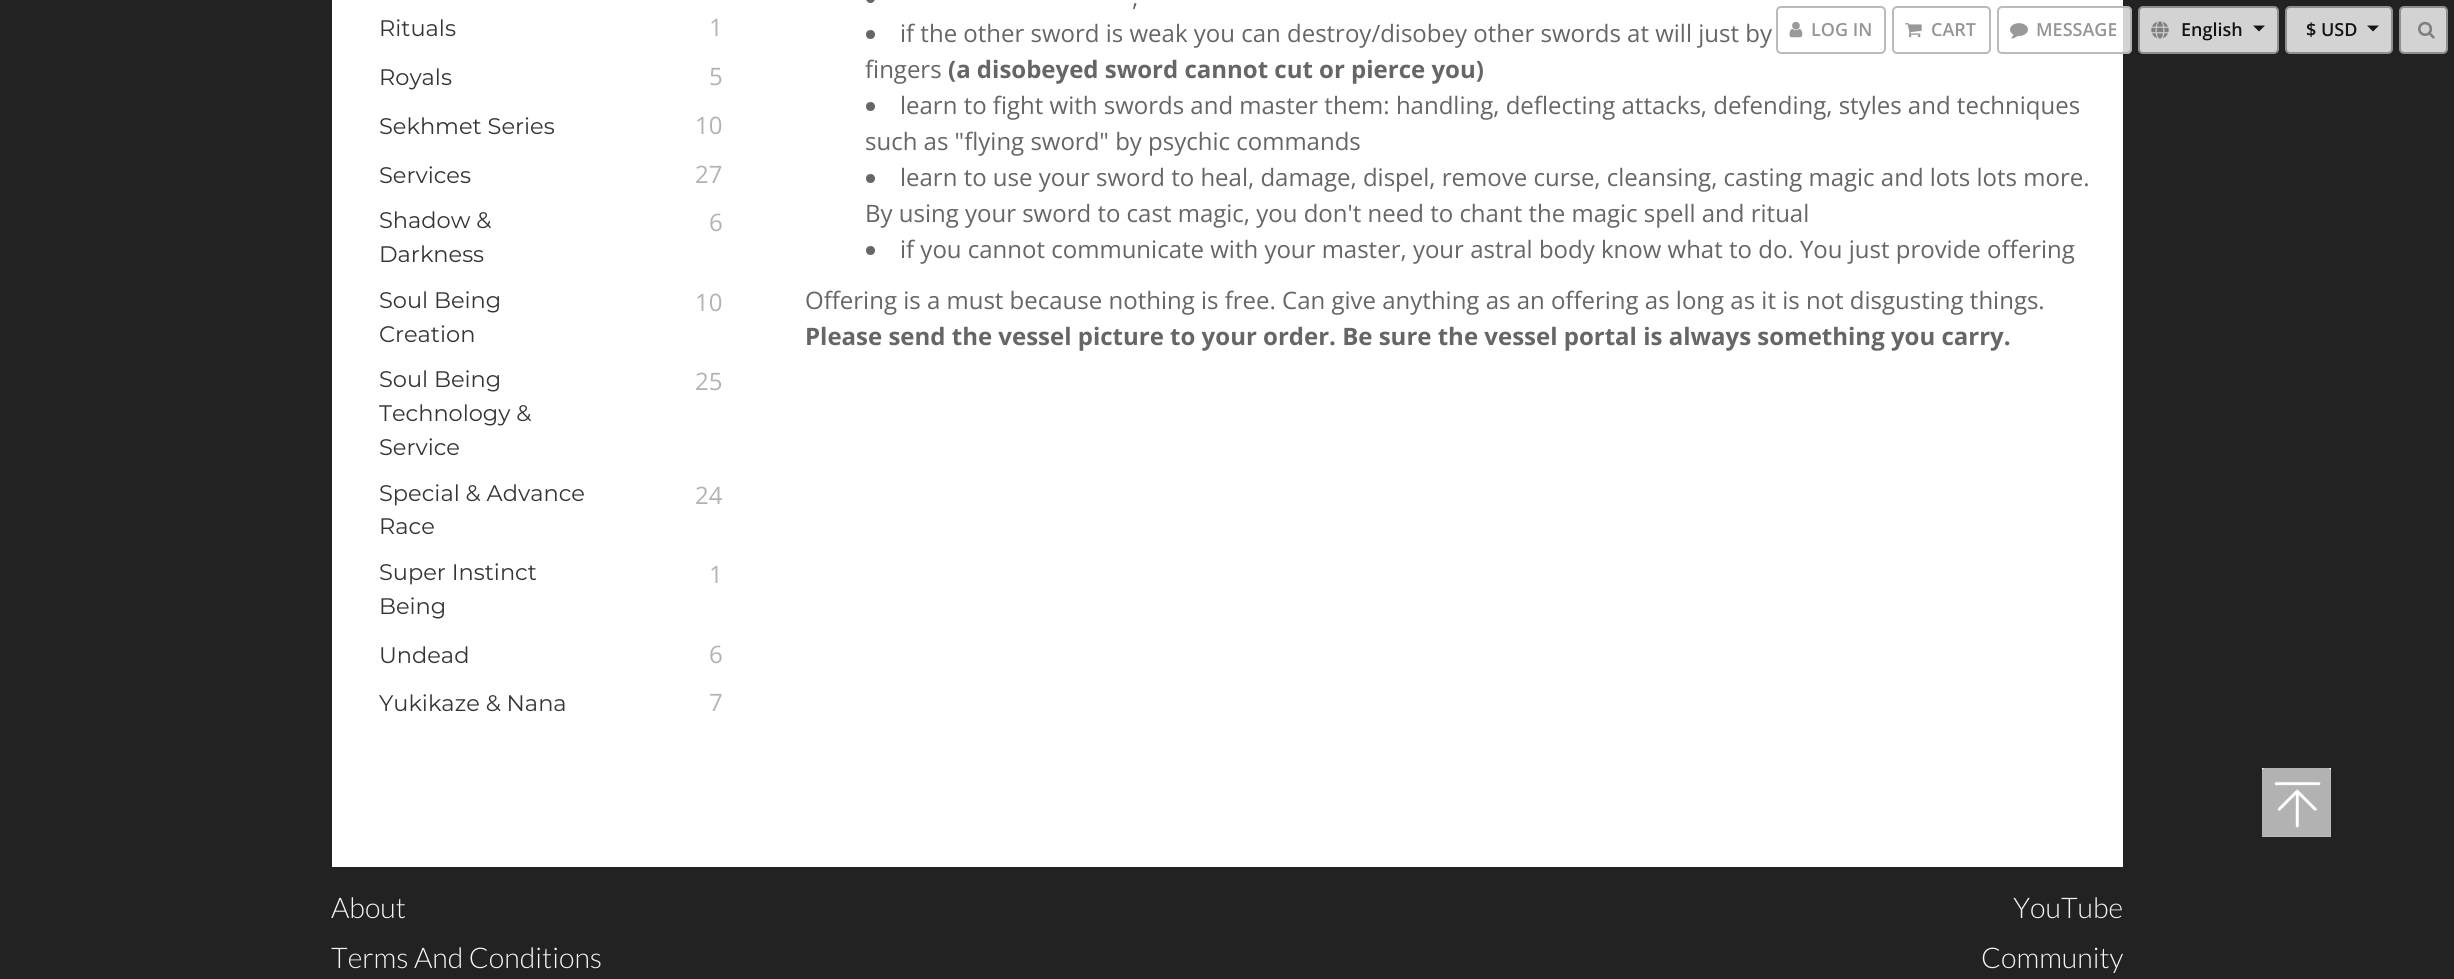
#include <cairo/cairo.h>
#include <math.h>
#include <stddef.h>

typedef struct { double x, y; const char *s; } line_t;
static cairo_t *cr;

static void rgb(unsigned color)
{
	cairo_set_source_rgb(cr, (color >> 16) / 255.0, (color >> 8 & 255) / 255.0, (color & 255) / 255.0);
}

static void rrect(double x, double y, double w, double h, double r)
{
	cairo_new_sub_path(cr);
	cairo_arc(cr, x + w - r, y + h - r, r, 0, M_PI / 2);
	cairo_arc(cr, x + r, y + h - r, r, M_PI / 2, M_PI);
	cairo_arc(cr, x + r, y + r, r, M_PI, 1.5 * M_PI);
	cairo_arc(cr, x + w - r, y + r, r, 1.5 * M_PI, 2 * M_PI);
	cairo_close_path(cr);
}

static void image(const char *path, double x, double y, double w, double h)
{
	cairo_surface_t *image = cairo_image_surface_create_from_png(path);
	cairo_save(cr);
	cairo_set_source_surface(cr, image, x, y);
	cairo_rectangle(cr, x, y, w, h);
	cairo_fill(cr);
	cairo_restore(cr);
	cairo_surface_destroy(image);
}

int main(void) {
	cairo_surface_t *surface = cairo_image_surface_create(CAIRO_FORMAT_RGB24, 2454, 979);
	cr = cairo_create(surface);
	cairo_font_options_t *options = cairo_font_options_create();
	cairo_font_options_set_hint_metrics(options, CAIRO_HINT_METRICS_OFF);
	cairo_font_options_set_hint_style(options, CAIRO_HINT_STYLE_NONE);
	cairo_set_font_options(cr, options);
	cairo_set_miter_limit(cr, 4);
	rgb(0x222222);
	cairo_paint(cr);
	rgb(0xffffff);
	cairo_rectangle(cr, 332, 0, 1791, 867);
	cairo_fill(cr);
	rgb(0x666666);
	rrect(866, -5, 9, 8, 4.5);
	cairo_fill(cr);
	cairo_arc(cr, 870.5, 34.5, 4.5, 0, 2 * M_PI);
	cairo_fill(cr);
	cairo_arc(cr, 870.5, 106.5, 4.5, 0, 2 * M_PI);
	cairo_fill(cr);
	cairo_arc(cr, 870.5, 178.5, 4.5, 0, 2 * M_PI);
	cairo_fill(cr);
	cairo_arc(cr, 870.5, 250.5, 4.5, 0, 2 * M_PI);
	cairo_fill(cr);
	rrect(1777, 7, 108, 46, 4);
	cairo_set_source_rgba(cr, 0.667, 0.667, 0.667, 0.8);
	cairo_stroke(cr);
	image("img/1.png", 1789, 21, 14, 17);
	rrect(1893, 7, 97, 46, 4);
	cairo_stroke(cr);
	image("img/2.png", 1905, 23, 17, 15);
	cairo_set_source_rgba(cr, 1, 1, 1, 0.8);
	rrect(1997, 6, 135, 48, 5);
	cairo_fill(cr);
	rrect(1998, 7, 133, 46, 4);
	cairo_set_source_rgba(cr, 0.667, 0.667, 0.667, 0.8);
	cairo_stroke(cr);
	image("img/3.png", 2010, 23, 18, 16);
	rgb(0xd3d3d3);
	rrect(2139, 7, 139, 46, 4);
	cairo_fill_preserve(cr);
	rgb(0x8f8f8f);
	cairo_stroke(cr);
	image("img/4.png", 2151, 21, 18, 18);
	rgb(0x141414);
	cairo_new_path(cr);
	cairo_move_to(cr, 2253, 25.5);
	cairo_line_to(cr, 2265, 25.5);
	cairo_line_to(cr, 2259, 31.5);
	cairo_close_path(cr);
	cairo_fill(cr);
	rgb(0xd3d3d3);
	rrect(2286, 7, 106, 46, 4);
	cairo_fill_preserve(cr);
	rgb(0x8f8f8f);
	cairo_stroke(cr);
	rgb(0x141414);
	cairo_new_path(cr);
	cairo_move_to(cr, 2367, 25.5);
	cairo_line_to(cr, 2379, 25.5);
	cairo_line_to(cr, 2373, 31.5);
	cairo_close_path(cr);
	cairo_fill(cr);
	rgb(0xd3d3d3);
	rrect(2400, 7, 47, 46, 4);
	cairo_fill_preserve(cr);
	rgb(0x8f8f8f);
	cairo_stroke(cr);
	image("img/5.png", 2418, 21, 17, 18);
	image("img/6.png", 2262, 768, 69, 69);
	cairo_select_font_face(cr, "Montserrat", CAIRO_FONT_SLANT_NORMAL, CAIRO_FONT_WEIGHT_NORMAL);
	cairo_set_font_size(cr, 22.5);
	rgb(0x333733);
	cairo_move_to(cr, 379, 36);
	cairo_show_text(cr, "Rituals");
	cairo_select_font_face(cr, "Open Sans", CAIRO_FONT_SLANT_NORMAL, CAIRO_FONT_WEIGHT_NORMAL);
	cairo_set_font_size(cr, 24);
	rgb(0xb3b3b3);
	cairo_move_to(cr, 709, 36);
	cairo_show_text(cr, "1");
	cairo_select_font_face(cr, "Montserrat", CAIRO_FONT_SLANT_NORMAL, CAIRO_FONT_WEIGHT_NORMAL);
	cairo_set_font_size(cr, 22.5);
	rgb(0x333733);
	cairo_move_to(cr, 379, 85);
	cairo_show_text(cr, "Royals");
	cairo_select_font_face(cr, "Open Sans", CAIRO_FONT_SLANT_NORMAL, CAIRO_FONT_WEIGHT_NORMAL);
	cairo_set_font_size(cr, 24);
	rgb(0xb3b3b3);
	cairo_move_to(cr, 709, 85);
	cairo_show_text(cr, "5");
	cairo_select_font_face(cr, "Montserrat", CAIRO_FONT_SLANT_NORMAL, CAIRO_FONT_WEIGHT_NORMAL);
	cairo_set_font_size(cr, 22.5);
	rgb(0x333733);
	cairo_move_to(cr, 379, 134);
	cairo_show_text(cr, "Sekhmet Series");
	cairo_select_font_face(cr, "Open Sans", CAIRO_FONT_SLANT_NORMAL, CAIRO_FONT_WEIGHT_NORMAL);
	cairo_set_font_size(cr, 24);
	rgb(0xb3b3b3);
	cairo_move_to(cr, 695, 134);
	cairo_show_text(cr, "10");
	cairo_select_font_face(cr, "Montserrat", CAIRO_FONT_SLANT_NORMAL, CAIRO_FONT_WEIGHT_NORMAL);
	cairo_set_font_size(cr, 22.5);
	rgb(0x333733);
	cairo_move_to(cr, 379, 183);
	cairo_show_text(cr, "Services");
	cairo_select_font_face(cr, "Open Sans", CAIRO_FONT_SLANT_NORMAL, CAIRO_FONT_WEIGHT_NORMAL);
	cairo_set_font_size(cr, 24);
	rgb(0xb3b3b3);
	cairo_move_to(cr, 695, 183);
	cairo_show_text(cr, "27");
	cairo_select_font_face(cr, "Montserrat", CAIRO_FONT_SLANT_NORMAL, CAIRO_FONT_WEIGHT_NORMAL);
	cairo_set_font_size(cr, 22.5);
	rgb(0x333733);
	cairo_move_to(cr, 379, 228);
	cairo_show_text(cr, "Shadow &");
	cairo_move_to(cr, 379, 262);
	cairo_show_text(cr, "Darkness");
	cairo_select_font_face(cr, "Open Sans", CAIRO_FONT_SLANT_NORMAL, CAIRO_FONT_WEIGHT_NORMAL);
	cairo_set_font_size(cr, 24);
	rgb(0xb3b3b3);
	cairo_move_to(cr, 709, 231);
	cairo_show_text(cr, "6");
	cairo_select_font_face(cr, "Montserrat", CAIRO_FONT_SLANT_NORMAL, CAIRO_FONT_WEIGHT_NORMAL);
	cairo_set_font_size(cr, 22.5);
	rgb(0x333733);
	cairo_move_to(cr, 379, 308);
	cairo_show_text(cr, "Soul Being");
	cairo_move_to(cr, 379, 342);
	cairo_show_text(cr, "Creation");
	cairo_select_font_face(cr, "Open Sans", CAIRO_FONT_SLANT_NORMAL, CAIRO_FONT_WEIGHT_NORMAL);
	cairo_set_font_size(cr, 24);
	rgb(0xb3b3b3);
	cairo_move_to(cr, 695, 311);
	cairo_show_text(cr, "10");
	cairo_select_font_face(cr, "Montserrat", CAIRO_FONT_SLANT_NORMAL, CAIRO_FONT_WEIGHT_NORMAL);
	cairo_set_font_size(cr, 22.5);
	rgb(0x333733);
	{
		static const line_t items[] = {
			{379, 387, "Soul Being"},
			{379, 421, "Technology &"},
			{379, 455, "Service"},
		};
		for (size_t i = 0; i < sizeof items / sizeof *items; i++) {
			cairo_move_to(cr, items[i].x, items[i].y);
			cairo_show_text(cr, items[i].s);
		}
	}
	cairo_select_font_face(cr, "Open Sans", CAIRO_FONT_SLANT_NORMAL, CAIRO_FONT_WEIGHT_NORMAL);
	cairo_set_font_size(cr, 24);
	rgb(0xb3b3b3);
	cairo_move_to(cr, 695, 390);
	cairo_show_text(cr, "25");
	cairo_select_font_face(cr, "Montserrat", CAIRO_FONT_SLANT_NORMAL, CAIRO_FONT_WEIGHT_NORMAL);
	cairo_set_font_size(cr, 22.5);
	rgb(0x333733);
	cairo_move_to(cr, 379, 501);
	cairo_show_text(cr, "Special & Advance");
	cairo_move_to(cr, 379, 534);
	cairo_show_text(cr, "Race");
	cairo_select_font_face(cr, "Open Sans", CAIRO_FONT_SLANT_NORMAL, CAIRO_FONT_WEIGHT_NORMAL);
	cairo_set_font_size(cr, 24);
	rgb(0xb3b3b3);
	cairo_move_to(cr, 695, 504);
	cairo_show_text(cr, "24");
	cairo_select_font_face(cr, "Montserrat", CAIRO_FONT_SLANT_NORMAL, CAIRO_FONT_WEIGHT_NORMAL);
	cairo_set_font_size(cr, 22.5);
	rgb(0x333733);
	cairo_move_to(cr, 379, 580);
	cairo_show_text(cr, "Super Instinct");
	cairo_move_to(cr, 379, 614);
	cairo_show_text(cr, "Being");
	cairo_select_font_face(cr, "Open Sans", CAIRO_FONT_SLANT_NORMAL, CAIRO_FONT_WEIGHT_NORMAL);
	cairo_set_font_size(cr, 24);
	rgb(0xb3b3b3);
	cairo_move_to(cr, 709, 583);
	cairo_show_text(cr, "1");
	cairo_select_font_face(cr, "Montserrat", CAIRO_FONT_SLANT_NORMAL, CAIRO_FONT_WEIGHT_NORMAL);
	cairo_set_font_size(cr, 22.5);
	rgb(0x333733);
	cairo_move_to(cr, 379, 663);
	cairo_show_text(cr, "Undead");
	cairo_select_font_face(cr, "Open Sans", CAIRO_FONT_SLANT_NORMAL, CAIRO_FONT_WEIGHT_NORMAL);
	cairo_set_font_size(cr, 24);
	rgb(0xb3b3b3);
	cairo_move_to(cr, 709, 663);
	cairo_show_text(cr, "6");
	cairo_select_font_face(cr, "Montserrat", CAIRO_FONT_SLANT_NORMAL, CAIRO_FONT_WEIGHT_NORMAL);
	cairo_set_font_size(cr, 22.5);
	rgb(0x333733);
	cairo_move_to(cr, 379, 711);
	cairo_show_text(cr, "Yukikaze & Nana");
	cairo_select_font_face(cr, "Open Sans", CAIRO_FONT_SLANT_NORMAL, CAIRO_FONT_WEIGHT_NORMAL);
	cairo_set_font_size(cr, 24);
	rgb(0xb3b3b3);
	cairo_move_to(cr, 709, 711);
	cairo_show_text(cr, "7");
	rgb(0x666666);
	{
		static const line_t items[] = {
			{1132, 6, ","},
			{900, 42, "if the other sword is weak you can destroy/disobey other swords at will just by"},
			{865, 78, "fingers"},
		};
		for (size_t i = 0; i < sizeof items / sizeof *items; i++) {
			cairo_move_to(cr, items[i].x, items[i].y);
			cairo_show_text(cr, items[i].s);
		}
	}
	cairo_select_font_face(cr, "Open Sans", CAIRO_FONT_SLANT_NORMAL, CAIRO_FONT_WEIGHT_BOLD);
	cairo_move_to(cr, 948, 78);
	cairo_show_text(cr, "(a disobeyed sword cannot cut or pierce you)");
	cairo_select_font_face(cr, "Open Sans", CAIRO_FONT_SLANT_NORMAL, CAIRO_FONT_WEIGHT_NORMAL);
	{
		static const line_t items[] = {
			{900, 114, "learn to fight with swords and master them: handling, deflecting attacks, defending, styles and techniques"},
			{865, 150, "such as \"flying sword\" by psychic commands"},
			{900, 186, "learn to use your sword to heal, damage, dispel, remove curse, cleansing, casting magic and lots lots more."},
			{865, 222, "By using your sword to cast magic, you don't need to chant the magic spell and ritual"},
			{900, 258, "if you cannot communicate with your master, your astral body know what to do. You just provide offering"},
			{805, 309, "Offering is a must because nothing is free. Can give anything as an offering as long as it is not disgusting things."},
		};
		for (size_t i = 0; i < sizeof items / sizeof *items; i++) {
			cairo_move_to(cr, items[i].x, items[i].y);
			cairo_show_text(cr, items[i].s);
		}
	}
	cairo_select_font_face(cr, "Open Sans", CAIRO_FONT_SLANT_NORMAL, CAIRO_FONT_WEIGHT_BOLD);
	cairo_move_to(cr, 805, 345);
	cairo_show_text(cr, "Please send the vessel picture to your order. Be sure the vessel portal is always something you carry.");
	cairo_select_font_face(cr, "Lato Light", CAIRO_FONT_SLANT_NORMAL, CAIRO_FONT_WEIGHT_NORMAL);
	cairo_set_font_size(cr, 28.5);
	rgb(0xf5f5f5);
	{
		static const line_t items[] = {
			{331, 918, "About"},
			{331, 968, "Terms And Conditions"},
			{2013, 918, "YouTube"},
			{1981, 968, "Community"},
		};
		for (size_t i = 0; i < sizeof items / sizeof *items; i++) {
			cairo_move_to(cr, items[i].x, items[i].y);
			cairo_show_text(cr, items[i].s);
		}
	}
	cairo_select_font_face(cr, "Open Sans SemiBold", CAIRO_FONT_SLANT_NORMAL, CAIRO_FONT_WEIGHT_NORMAL);
	cairo_set_font_size(cr, 18);
	rgb(0x959595);
	{
		static const line_t items[] = {
			{1811, 36, "LOG IN"},
			{1931, 36, "CART"},
			{2036, 36, "MESSAGE"},
		};
		for (size_t i = 0; i < sizeof items / sizeof *items; i++) {
			cairo_move_to(cr, items[i].x, items[i].y);
			cairo_show_text(cr, items[i].s);
		}
	}
	rgb(0x141414);
	cairo_move_to(cr, 2181, 36);
	cairo_show_text(cr, "English");
	cairo_move_to(cr, 2306, 36);
	cairo_show_text(cr, "$ USD");
	cairo_surface_write_to_png(surface, "page.png");
	cairo_font_options_destroy(options);
	cairo_destroy(cr);
	cairo_surface_destroy(surface);
	return 0;
}
